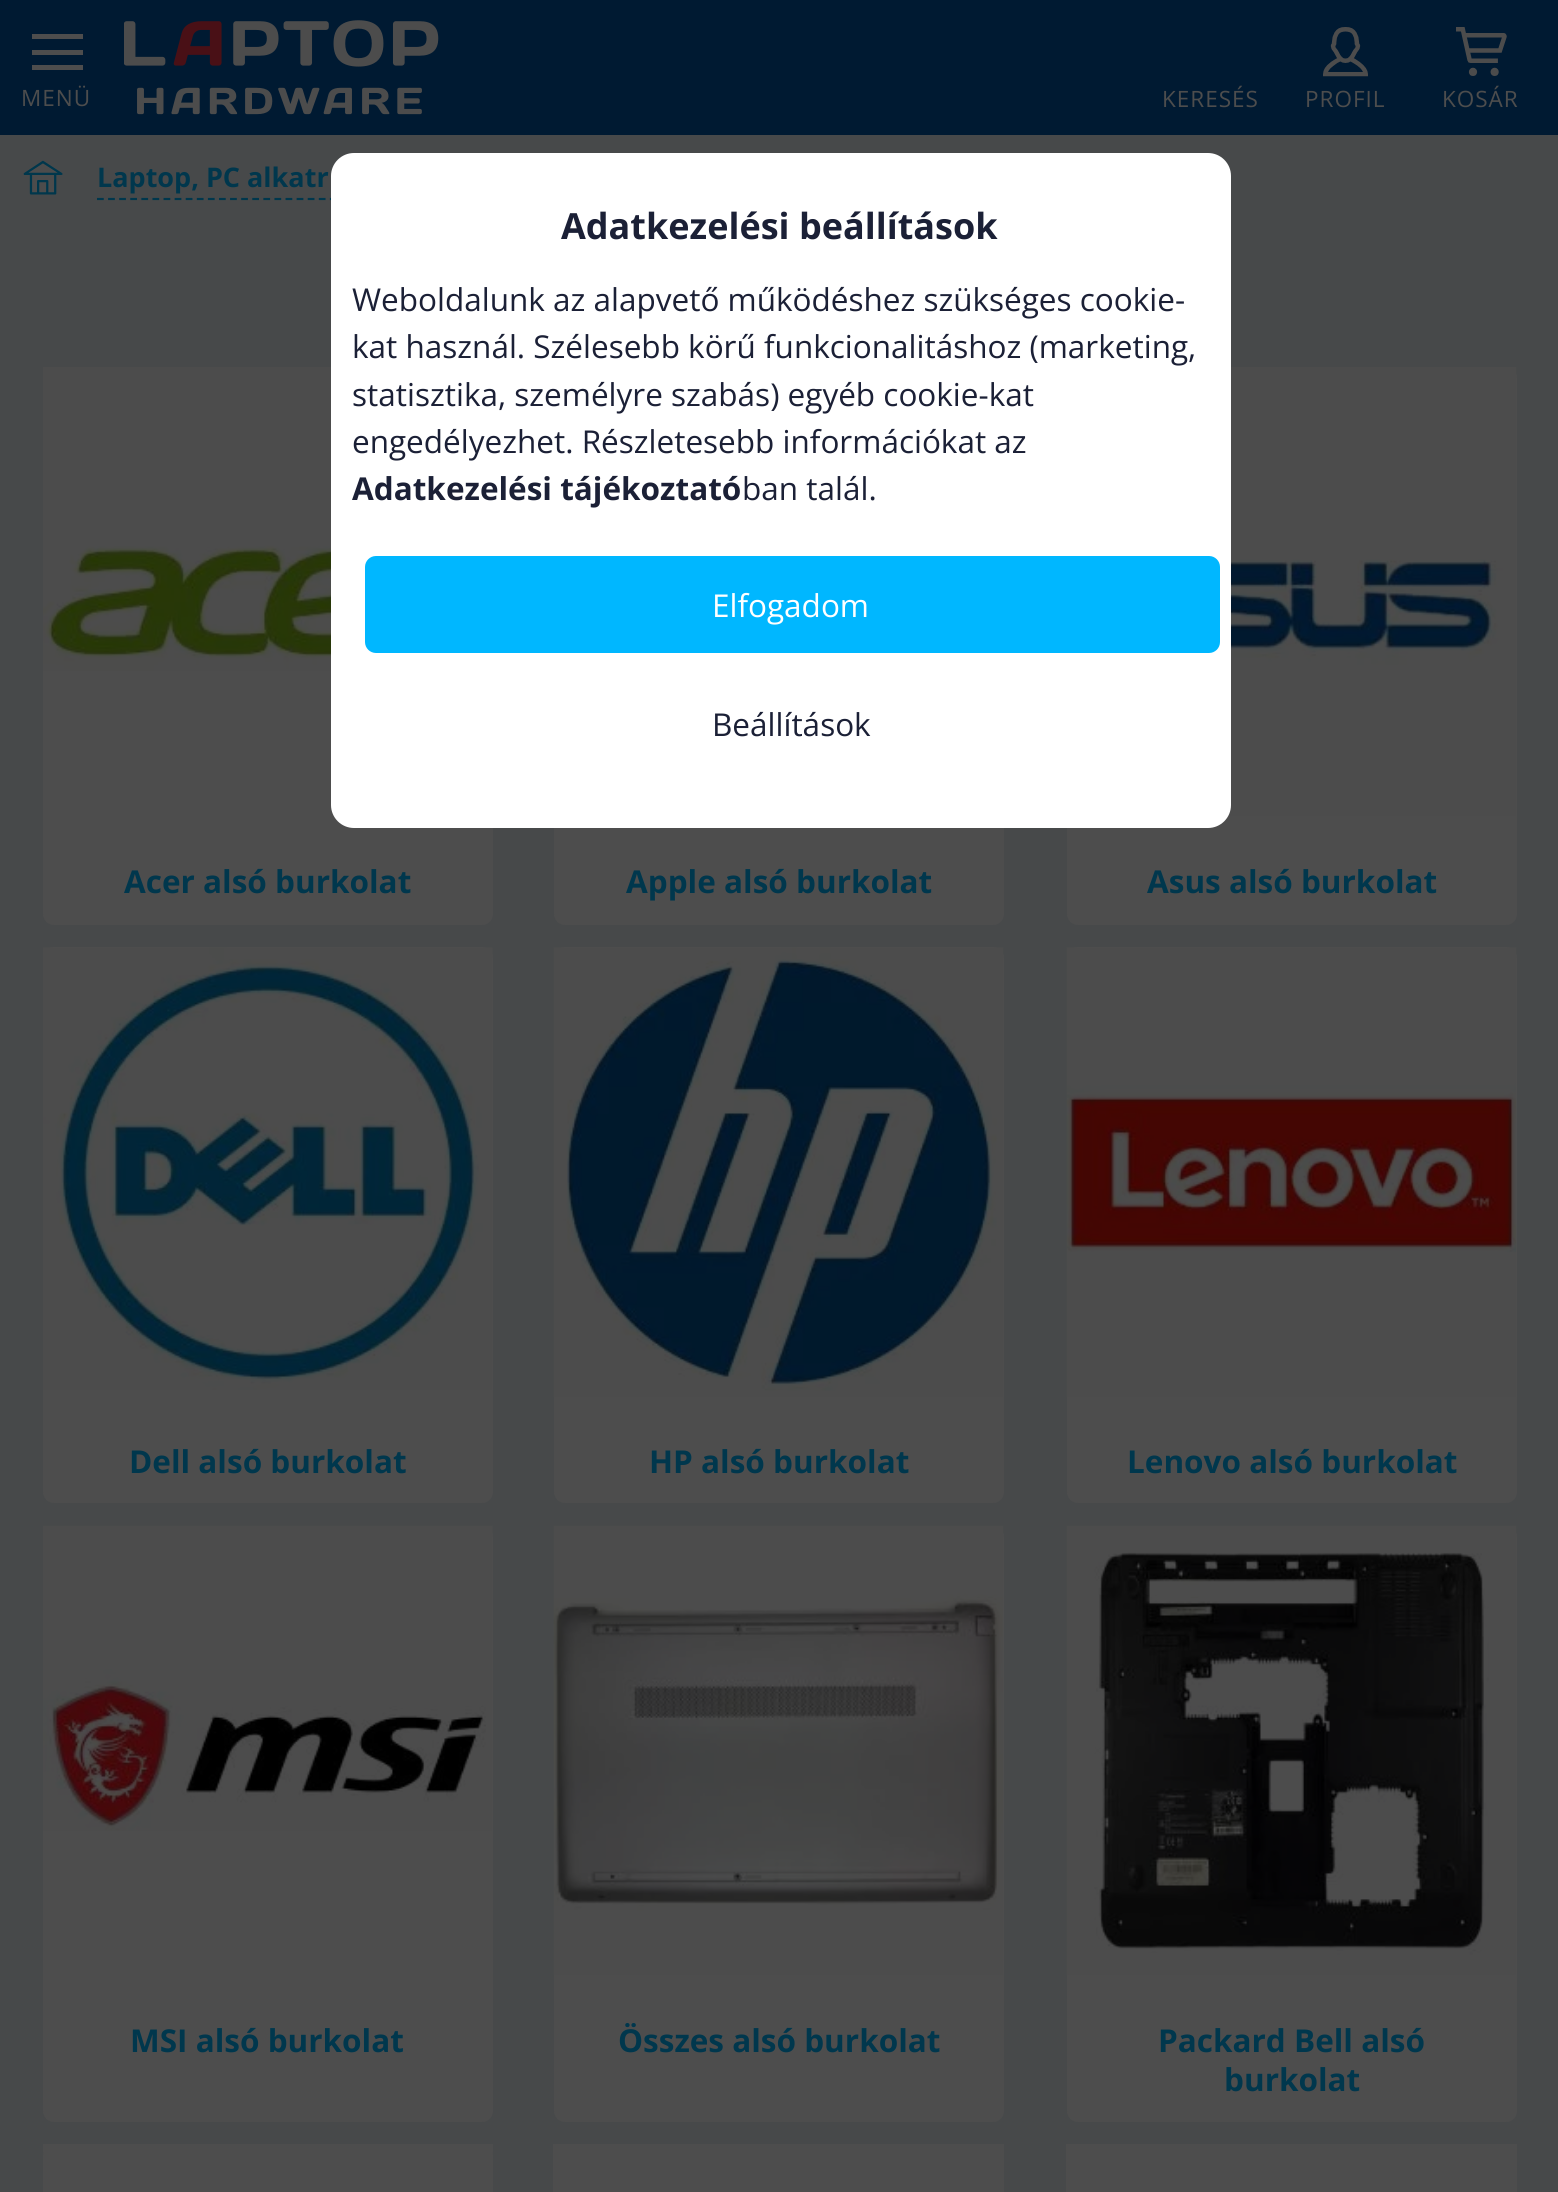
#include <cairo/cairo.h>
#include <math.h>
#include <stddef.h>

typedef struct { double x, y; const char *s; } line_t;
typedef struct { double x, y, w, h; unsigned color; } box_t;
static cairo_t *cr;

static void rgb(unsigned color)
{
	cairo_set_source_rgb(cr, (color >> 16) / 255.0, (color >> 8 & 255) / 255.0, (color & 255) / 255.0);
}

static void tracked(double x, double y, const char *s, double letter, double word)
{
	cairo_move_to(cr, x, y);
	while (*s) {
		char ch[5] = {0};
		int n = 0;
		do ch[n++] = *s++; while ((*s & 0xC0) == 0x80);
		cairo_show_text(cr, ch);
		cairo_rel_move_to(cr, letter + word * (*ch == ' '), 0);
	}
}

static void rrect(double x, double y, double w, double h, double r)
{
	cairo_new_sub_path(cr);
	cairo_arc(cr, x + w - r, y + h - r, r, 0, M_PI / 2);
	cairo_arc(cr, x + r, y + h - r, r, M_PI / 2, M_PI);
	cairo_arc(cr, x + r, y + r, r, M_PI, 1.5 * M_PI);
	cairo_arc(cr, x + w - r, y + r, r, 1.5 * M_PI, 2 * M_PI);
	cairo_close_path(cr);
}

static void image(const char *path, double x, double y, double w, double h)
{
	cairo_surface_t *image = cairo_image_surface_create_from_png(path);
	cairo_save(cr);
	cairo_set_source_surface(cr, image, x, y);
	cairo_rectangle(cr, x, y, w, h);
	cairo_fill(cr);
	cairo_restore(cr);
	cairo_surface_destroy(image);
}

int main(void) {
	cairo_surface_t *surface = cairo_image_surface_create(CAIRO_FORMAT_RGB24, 1558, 2192);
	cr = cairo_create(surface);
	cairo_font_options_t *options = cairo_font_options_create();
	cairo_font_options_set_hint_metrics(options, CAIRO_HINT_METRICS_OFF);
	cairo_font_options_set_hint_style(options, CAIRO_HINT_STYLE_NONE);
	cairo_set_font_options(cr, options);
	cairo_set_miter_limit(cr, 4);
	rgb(0x47494a);
	cairo_paint(cr);
	{
		static const box_t items[] = {
			{0, 0, 1558, 135, 0x001a32},
			{32, 34, 51, 5, 0x4d4d4d},
			{32, 50, 51, 5, 0x4d4d4d},
			{32, 65, 51, 5, 0x4d4d4d},
		};
		for (size_t i = 0; i < sizeof items / sizeof *items; i++) {
			rgb(items[i].color);
			cairo_rectangle(cr, items[i].x, items[i].y, items[i].w, items[i].h);
			cairo_fill(cr);
		}
	}
	image("img/1.png", 124, 20, 315, 95);
	image("img/2.png", 1323, 27, 45, 50);
	image("img/3.png", 1456, 27, 51, 49);
	image("img/4.png", 23, 160, 40, 35);
	cairo_new_path(cr);
	cairo_move_to(cr, 97, 199);
	cairo_line_to(cr, 403, 199);
	rgb(0x00374d);
	cairo_set_line_width(cr, 2.2);
	cairo_set_dash(cr, (double[]){6.75, 4.34}, 2, 0);
	cairo_stroke(cr);
	rgb(0x4d4d4d);
	rrect(43, 367, 450, 558, 11);
	cairo_fill(cr);
	image("img/5.png", 43, 367, 288, 304);
	rrect(554, 367, 450, 558, 11);
	cairo_fill(cr);
	rrect(1067, 367, 450, 558, 11);
	cairo_fill(cr);
	image("img/6.png", 1228, 367, 289, 449);
	rrect(43, 947, 450, 556, 11);
	cairo_fill(cr);
	image("img/7.png", 43, 947, 450, 443);
	rrect(554, 947, 450, 556, 11);
	cairo_fill(cr);
	image("img/8.png", 553, 947, 451, 450);
	rrect(1067, 947, 450, 556, 11);
	cairo_fill(cr);
	image("img/9.png", 1066, 947, 451, 450);
	rrect(43, 1526, 450, 596, 11);
	cairo_fill(cr);
	image("img/10.png", 43, 1525, 450, 306);
	rrect(554, 1526, 450, 596, 11);
	cairo_fill(cr);
	image("img/11.png", 553, 1525, 451, 450);
	rrect(1067, 1526, 450, 596, 11);
	cairo_fill(cr);
	image("img/12.png", 1066, 1525, 451, 450);
	rrect(43, 2144, 450, 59, 11);
	cairo_fill(cr);
	{
		static const box_t items[] = {
			{43, 2144, 450, 8, 0x4d4d4d},
			{553, 2144, 451, 48, 0x4d4d4d},
			{1066, 2144, 451, 48, 0x4d4d4d},
		};
		for (size_t i = 0; i < sizeof items / sizeof *items; i++) {
			rgb(items[i].color);
			cairo_rectangle(cr, items[i].x, items[i].y, items[i].w, items[i].h);
			cairo_fill(cr);
		}
	}
	rgb(0xffffff);
	rrect(331, 153, 900, 675, 23);
	cairo_fill(cr);
	rgb(0x00b7ff);
	rrect(366, 557, 853, 95, 10);
	cairo_fill_preserve(cr);
	cairo_set_line_width(cr, 2);
	cairo_set_dash(cr, NULL, 0, 0);
	cairo_stroke(cr);
	cairo_select_font_face(cr, "Open Sans", CAIRO_FONT_SLANT_NORMAL, CAIRO_FONT_WEIGHT_NORMAL);
	cairo_set_font_size(cr, 22.5);
	rgb(0x4d4d4d);
	{
		static const line_t items[] = {
			{21, 106, "MENÜ"},
			{1162, 107, "KERESÉS"},
			{1305, 107, "PROFIL"},
			{1442, 107, "KOSÁR"},
		};
		for (size_t i = 0; i < sizeof items / sizeof *items; i++) {
			tracked(items[i].x, items[i].y, items[i].s, 1, 0);
		}
	}
	cairo_select_font_face(cr, "Open Sans", CAIRO_FONT_SLANT_NORMAL, CAIRO_FONT_WEIGHT_BOLD);
	cairo_set_font_size(cr, 27);
	rgb(0x00374d);
	cairo_move_to(cr, 97, 187);
	cairo_show_text(cr, "Laptop, PC alkatr");
	cairo_set_font_size(cr, 31.5);
	{
		static const line_t items[] = {
			{124, 893, "Acer alsó burkolat"},
			{626, 893, "Apple alsó burkolat"},
			{1147, 893, "Asus alsó burkolat"},
			{129, 1473, "Dell alsó burkolat"},
			{649, 1473, "HP alsó burkolat"},
			{1127, 1473, "Lenovo alsó burkolat"},
			{130, 2052, "MSI alsó burkolat"},
			{618, 2052, "Összes alsó burkolat"},
			{1158, 2052, "Packard Bell alsó"},
			{1224, 2091, "burkolat"},
		};
		for (size_t i = 0; i < sizeof items / sizeof *items; i++) {
			cairo_move_to(cr, items[i].x, items[i].y);
			cairo_show_text(cr, items[i].s);
		}
	}
	cairo_set_font_size(cr, 36);
	rgb(0x1b2036);
	cairo_move_to(cr, 561, 239);
	cairo_show_text(cr, "Adatkezelési beállítások");
	cairo_select_font_face(cr, "Open Sans", CAIRO_FONT_SLANT_NORMAL, CAIRO_FONT_WEIGHT_NORMAL);
	cairo_set_font_size(cr, 31.5);
	{
		static const line_t items[] = {
			{352, 311, "Weboldalunk az alapvető működéshez szükséges cookie-"},
			{352, 358, "kat használ. Szélesebb körű funkcionalitáshoz (marketing,"},
			{352, 406, "statisztika, személyre szabás) egyéb cookie-kat"},
			{352, 453, "engedélyezhet. Részletesebb információkat az"},
		};
		for (size_t i = 0; i < sizeof items / sizeof *items; i++) {
			cairo_move_to(cr, items[i].x, items[i].y);
			cairo_show_text(cr, items[i].s);
		}
	}
	cairo_select_font_face(cr, "Open Sans", CAIRO_FONT_SLANT_NORMAL, CAIRO_FONT_WEIGHT_BOLD);
	cairo_move_to(cr, 352, 500);
	cairo_show_text(cr, "Adatkezelési tájékoztató");
	cairo_select_font_face(cr, "Open Sans", CAIRO_FONT_SLANT_NORMAL, CAIRO_FONT_WEIGHT_NORMAL);
	cairo_move_to(cr, 742, 500);
	cairo_show_text(cr, "ban talál.");
	rgb(0xffffff);
	cairo_move_to(cr, 712, 617);
	cairo_show_text(cr, "Elfogadom");
	rgb(0x1b2036);
	cairo_move_to(cr, 712, 736);
	cairo_show_text(cr, "Beállítások");
	cairo_surface_write_to_png(surface, "page.png");
	cairo_font_options_destroy(options);
	cairo_destroy(cr);
	cairo_surface_destroy(surface);
	return 0;
}
